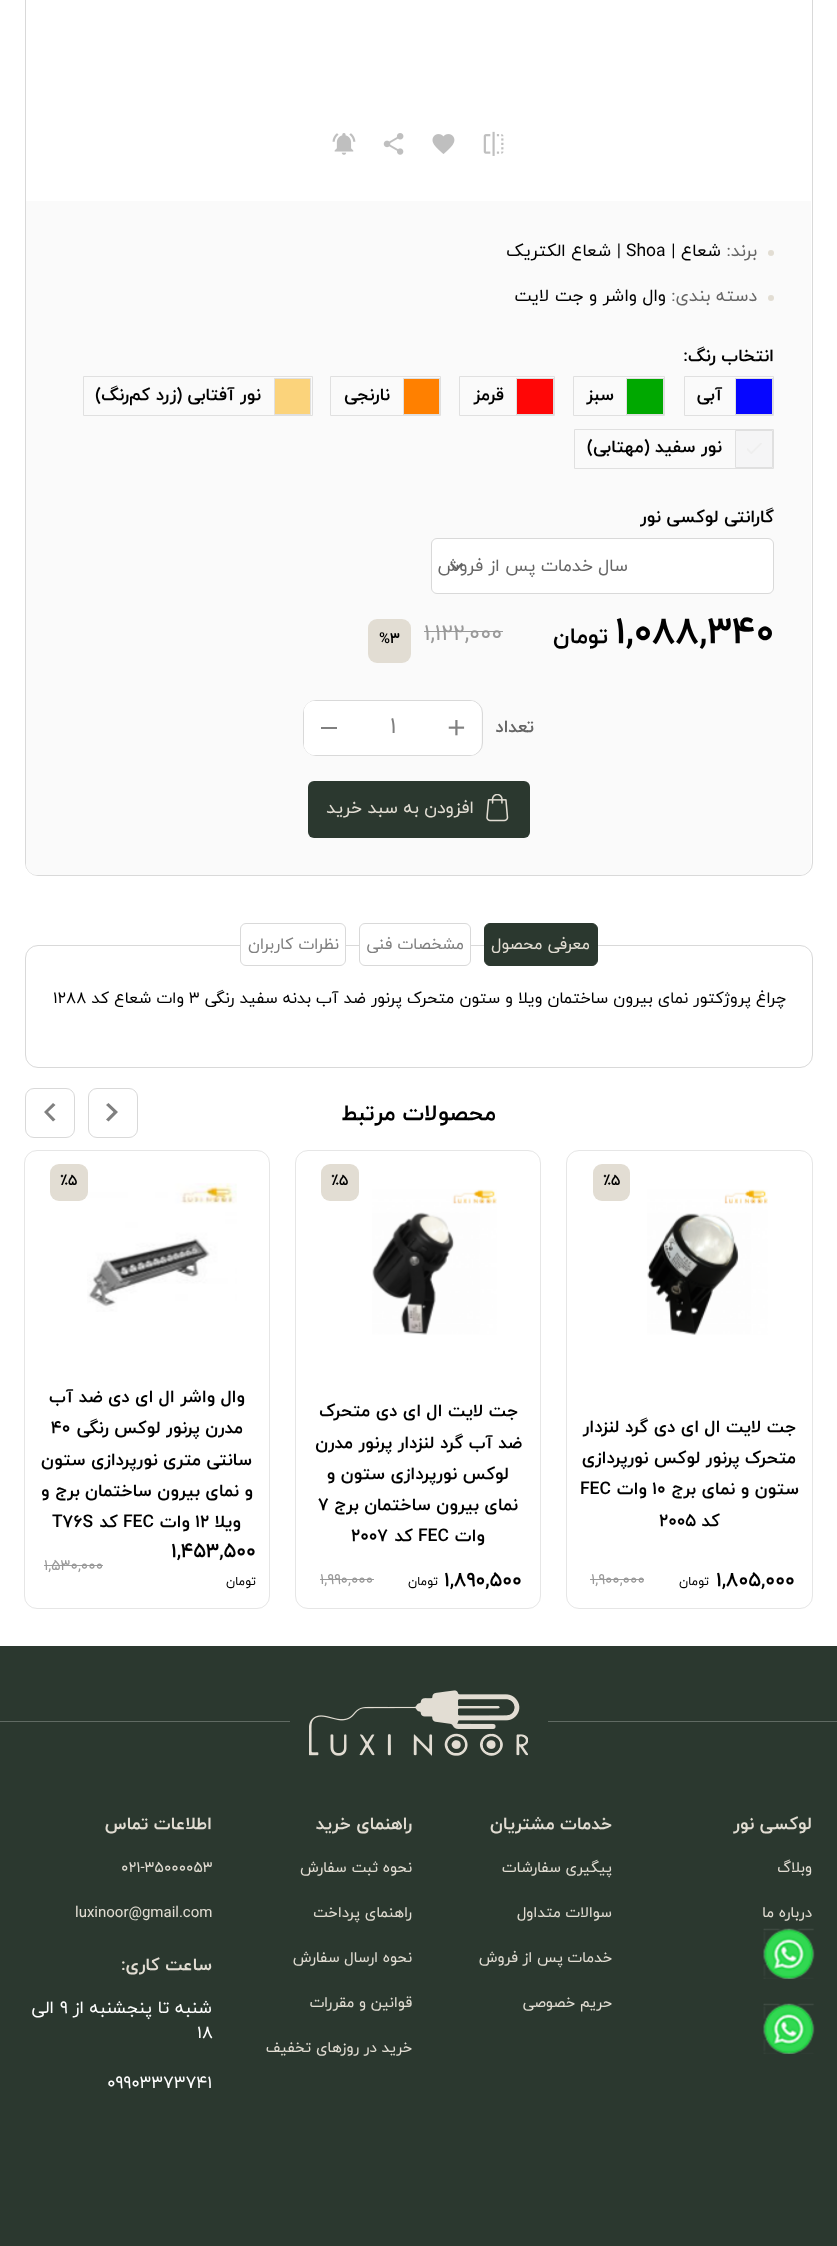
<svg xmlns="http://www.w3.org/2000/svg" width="837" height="2246">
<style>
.a{font:17.5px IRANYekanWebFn;direction:rtl;fill:#666}
.b{font:17.5px IRANYekanWebFn;direction:rtl;fill:#000}
.c{font:17.5px IRANYekanWebFn;fill:#000}
.d{font:bold 17.5px IRANYekanWebFn;direction:rtl;fill:#000}
.e{font:bold 37.5px IRANYekanWebFn;fill:#000}
.f{font:bold 22.5px IRANYekanWebFn;direction:rtl;fill:#000}
.g{font:22.5px IRANYekanWebFn;fill:#999}
.h{font:bold 15px IRANYekanWebFn;fill:#000}
.i{font:bold 17.5px IRANYekanWebFn;direction:rtl;fill:#666}
.j{font:22.5px IRANYekanWebFn;fill:#808080}
.k{font:17.5px IRANYekanWebFn;direction:rtl;fill:#e2ddd3}
.l{font:16.25px IRANYekanWebFn;direction:rtl;fill:#e2ddd3}
.m{font:16.25px IRANYekanWebFn;direction:rtl;fill:#808080}
.n{font:16.25px IRANYekanWebFn;direction:rtl;fill:#000}
.o{font:16.25px IRANYekanWebFn;fill:#000}
.p{font:bold 20px IRANYekanWebFn;fill:#000}
.q{font:12.5px IRANYekanWebFn;direction:rtl;fill:#000}
.r{font:15px IRANYekanWebFn;fill:#999}
.s{font:bold 17.5px IRANYekanWebFn;fill:#000}
.t{font:bold 17.5px IRANYekanWebFn;direction:rtl;fill:#e2ddd3}
.u{font:15px IRANYekanWebFn;direction:rtl;fill:#e2ddd3}
.v{font:15px IRANYekanWebFn;fill:#e2ddd3}
.w{font:17.5px IRANYekanWebFn;direction:rtl;fill:#fff}
.x{font:17.5px IRANYekanWebFn;fill:#fff}
</style>
<rect width="100%" height="100%" fill="#fff"/>
<rect fill="none" stroke="#d9d9d9" x="25.5" y="-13.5" width="787" height="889" rx="12.5"/>
<image href="1.png" x="483" y="131" width="21" height="25"/>
<image href="2.png" x="432" y="134" width="23" height="20"/>
<image href="3.png" x="383" y="133" width="21" height="22"/>
<image href="4.png" x="332" y="133" width="24" height="22"/>
<path fill="#fafafa" d="M26 201h785v663c0 6-5 11-11 11h-763c-6 0-11-5-11-11z"/>
<circle fill="#e2ddd3" cx="771" cy="253" r="3"/>
<circle fill="#e2ddd3" cx="771" cy="298" r="3"/>
<path fill="none" stroke="#e0e0e0" d="M684.5 376.5h89v39H684.5z"/>
<path fill="#0606ff" stroke="#e0e0e0" d="M735.5 378.5h37v36H735.5z"/>
<path fill="none" stroke="#e0e0e0" d="M573.5 376.5h91v39H573.5z"/>
<path fill="#00a800" stroke="#e0e0e0" d="M626.5 378.5h37v36H626.5z"/>
<path fill="none" stroke="#e0e0e0" d="M459.5 376.5h95v39H459.5z"/>
<path fill="#ff0606" stroke="#e0e0e0" d="M516.5 378.5h37v36H516.5z"/>
<path fill="none" stroke="#e0e0e0" d="M330.5 376.5h110v39H330.5z"/>
<path fill="#ff8000" stroke="#e0e0e0" d="M403.5 378.5h36v36H403.5z"/>
<path fill="none" stroke="#e0e0e0" d="M83.5 376.5h229v39H83.5z"/>
<path fill="#fbd37b" stroke="#e0e0e0" d="M274.5 378.5h36v36H274.5z"/>
<path fill="none" stroke="#e0e0e0" d="M574.5 429.5h199v39H574.5z"/>
<path fill="#f5f5f6" stroke="#e0e0e0" d="M735.5 430.5h37v37H735.5z"/>
<image href="5.png" x="747" y="443" width="15" height="11"/>
<rect fill="#fff" stroke="#d9d9d9" x="431.5" y="538.5" width="342" height="55" rx="5.5"/>
<rect fill="#e2ddd3" x="368" y="619" width="43" height="44" rx="9"/>
<rect fill="none" stroke="#d9d9d9" x="303.5" y="700.5" width="179" height="55" rx="12.5"/>
<rect fill="#fff" x="304" y="701" width="177" height="54" rx="11"/>
<path fill="#fff" d="M431 701h39c6 0 11 5 11 11v32c0 6-5 11-11 11h-39z"/>
<image href="7.png" x="448" y="720" width="17" height="16"/>
<path fill="#fff" d="M315 701h39v54h-39c-6 0-11-5-11-11v-32c0-6 5-11 11-11z"/>
<path fill="#808080" d="M321 727h16v2H321z"/>
<rect fill="#2b382f" x="308" y="781" width="222" height="57" rx="6"/>
<image href="8.png" x="486" y="794" width="23" height="28"/>
<rect fill="none" stroke="#d9d9d9" x="25.5" y="945.5" width="787" height="122" rx="12.5"/>
<rect fill="#2b382f" stroke="#2b382f" x="484.5" y="923.5" width="113" height="42" rx="5.5"/>
<rect fill="#fff" stroke="#d9d9d9" x="359.5" y="923.5" width="111" height="42" rx="5.5"/>
<rect fill="#fff" stroke="#d9d9d9" x="240.5" y="923.5" width="105" height="42" rx="5.5"/>
<rect fill="none" stroke="#d9d9d9" x="88.5" y="1088.5" width="49" height="49" rx="8.5"/>
<path fill="#808080" d="M108.5 1103l9.5 9l-9.5 9.5l-2.5-2l7.5-7.5l-7.5-7z"/>
<rect fill="none" stroke="#d9d9d9" x="25.5" y="1088.5" width="49" height="49" rx="8.5"/>
<path fill="#808080" d="M55.5 1105l-7.5 7l7.5 7.5l-2.5 2l-9-9.5l9-9z"/>
<rect fill="none" stroke="#e6e6e6" x="566.5" y="1150.5" width="246" height="458" rx="12.5"/>
<rect fill="#e2ddd3" x="593" y="1164" width="37" height="37" rx="9"/>
<path fill="#999" d="M590 1579h54v1H590z"/>
<image href="9.png" x="647" y="1189" width="121" height="146"/>
<rect fill="none" stroke="#e6e6e6" x="295.5" y="1150.5" width="245" height="458" rx="12.5"/>
<rect fill="#e2ddd3" x="321" y="1164" width="38" height="37" rx="9"/>
<path fill="#999" d="M320 1579h54v1H320z"/>
<image href="10.png" x="372" y="1189" width="125" height="146"/>
<rect fill="none" stroke="#e6e6e6" x="24.5" y="1150.5" width="245" height="458" rx="12.5"/>
<image href="11.png" x="87" y="1183" width="150" height="129"/>
<rect fill="#e2ddd3" x="50" y="1164" width="38" height="37" rx="9"/>
<path fill="#999" d="M44 1565h59v1H44z"/>
<path fill="#2b382f" d="M0 1646h837v600H0z"/>
<path fill="#606a63" d="M0 1721h837v1H0z"/>
<path fill="#2b382f" d="M290 1721h258v1H290z"/>
<image href="12.png" x="309" y="1690" width="219" height="66"/>
<image href="13.png" x="763" y="1928" width="52" height="51"/>
<image href="14.png" x="763" y="2003" width="52" height="51"/>
<text class="a" x="757" y="256">برند:</text>
<text class="b" x="721" y="256">شعاع |</text>
<text class="c" x="626" y="256">Shoa</text>
<text class="b" x="621" y="256">| شعاع الکتریک</text>
<text class="a" x="757" y="301">دسته بندی:</text>
<text class="b" x="666" y="301">وال واشر و جت لایت</text>
<text class="d" x="774" y="361">انتخاب رنگ:</text>
<text class="d" x="722" y="400">آبی</text>
<text class="d" x="614" y="400">سبز</text>
<text class="d" x="504" y="400">قرمز</text>
<text class="d" x="390" y="400">نارنجی</text>
<text class="d" x="261" y="400">نور آفتابی (زرد کم‌رنگ)</text>
<text class="d" x="722" y="452">نور سفید (مهتابی)</text>
<text class="d" x="774" y="522">گارانتی لوکسی نور</text>
<text class="a" x="628" y="571">سال خدمات پس از فروش</text>
<image href="6.png" x="450" y="562" width="13" height="9"/>
<text class="e" x="615" y="643">1,088,340</text>
<text class="f" x="608" y="643">تومان</text>
<text class="g" x="424" y="640">1,122,000</text>
<path fill="#989898" d="M424 631h79v1H424z"/>
<text class="h" x="379" y="643">%3</text>
<text class="i" x="534" y="732">تعداد</text>
<text class="j" x="390" y="733">1</text>
<text class="k" x="474" y="813">افزودن به سبد خرید</text>
<text class="l" x="590" y="949">معرفی محصول</text>
<text class="m" x="464" y="949">مشخصات فنی</text>
<text class="m" x="339" y="949">نظرات کاربران</text>
<text class="n" x="786" y="1003">چراغ پروژکتور نمای بیرون ساختمان ویلا و ستون متحرک پرنور ضد آب بدنه سفید رنگی</text>
<text class="o" x="189" y="1003">3</text>
<text class="n" x="184" y="1003">وات شعاع کد</text>
<text class="o" x="53" y="1003">1288</text>
<text class="f" x="496" y="1120">محصولات مرتبط</text>
<text class="h" x="603" y="1185">٪5</text>
<text class="p" x="716" y="1586">۱,۸۰۵,۰۰۰</text>
<text class="q" x="709" y="1585">تومان</text>
<text class="r" x="591" y="1584">۱,۹۰۰,۰۰۰</text>
<text class="d" x="796" y="1432">جت لایت ال ای دی گرد لنزدار</text>
<text class="d" x="796" y="1463">متحرک پرنور لوکس نورپردازی</text>
<text class="d" x="799" y="1494">ستون و نمای برج</text>
<text class="s" x="652" y="1494">10</text>
<text class="d" x="647" y="1494">وات</text>
<text class="s" x="580" y="1494">FEC</text>
<text class="d" x="720" y="1526">کد</text>
<text class="s" x="659" y="1526">2005</text>
<text class="h" x="331" y="1185">٪5</text>
<text class="p" x="444" y="1586">۱,۸۹۰,۵۰۰</text>
<text class="q" x="438" y="1585">تومان</text>
<text class="r" x="320" y="1584">۱,۹۹۰,۰۰۰</text>
<text class="d" x="518" y="1416">جت لایت ال ای دی متحرک</text>
<text class="d" x="522" y="1448">ضد آب گرد لنزدار پرنور مدرن</text>
<text class="d" x="509" y="1479">لوکس نورپردازی ستون و</text>
<text class="d" x="518" y="1510">نمای بیرون ساختمان برج</text>
<text class="s" x="318" y="1510">7</text>
<text class="d" x="485" y="1541">وات</text>
<text class="s" x="418" y="1541">FEC</text>
<text class="d" x="413" y="1541">کد</text>
<text class="s" x="351" y="1541">2007</text>
<text class="h" x="60" y="1185">٪5</text>
<text class="p" x="171" y="1557">۱,۴۵۳,۵۰۰</text>
<text class="q" x="256" y="1585">تومان</text>
<text class="r" x="44" y="1570">۱,۵۳۰,۰۰۰</text>
<text class="d" x="245" y="1402">وال واشر ال ای دی ضد آب</text>
<text class="d" x="243" y="1433">مدرن پرنور لوکس رنگی</text>
<text class="s" x="51" y="1433">40</text>
<text class="d" x="252" y="1465">سانتی متری نورپردازی ستون</text>
<text class="d" x="253" y="1496">و نمای بیرون ساختمان برج و</text>
<text class="d" x="241" y="1527">ویلا</text>
<text class="s" x="195" y="1527">12</text>
<text class="d" x="190" y="1527">وات</text>
<text class="s" x="123" y="1527">FEC</text>
<text class="d" x="118" y="1527">کد</text>
<text class="s" x="52" y="1527">T76S</text>
<text class="t" x="812" y="1829">لوکسی نور</text>
<text class="u" x="812" y="1872">وبلاگ</text>
<text class="u" x="812" y="1917">درباره ما</text>
<text class="t" x="612" y="1829">خدمات مشتریان</text>
<text class="u" x="612" y="1872">پیگیری سفارشات</text>
<text class="u" x="612" y="1917">سوالات متداول</text>
<text class="u" x="612" y="1962">خدمات پس از فروش</text>
<text class="u" x="612" y="2007">حریم خصوصی</text>
<text class="t" x="412" y="1829">راهنمای خرید</text>
<text class="u" x="412" y="1872">نحوه ثبت سفارش</text>
<text class="u" x="412" y="1917">راهنمای پرداخت</text>
<text class="u" x="412" y="1962">نحوه ارسال سفارش</text>
<text class="u" x="412" y="2007">قوانین و مقررات</text>
<text class="u" x="412" y="2052">خرید در روزهای تخفیف</text>
<text class="t" x="212" y="1829">اطلاعات تماس</text>
<text class="v" x="121" y="1872">021-35000053</text>
<text class="v" x="75" y="1917">luxinoor@gmail.com</text>
<text class="t" x="212" y="1970">ساعت کاری:</text>
<text class="w" x="212" y="2013">شنبه تا پنجشنبه از</text>
<text class="x" x="60" y="2013">9</text>
<text class="w" x="54" y="2013">الی</text>
<text class="x" x="197" y="2038">18</text>
<text class="x" x="107" y="2088">09903373741</text>
</svg>
